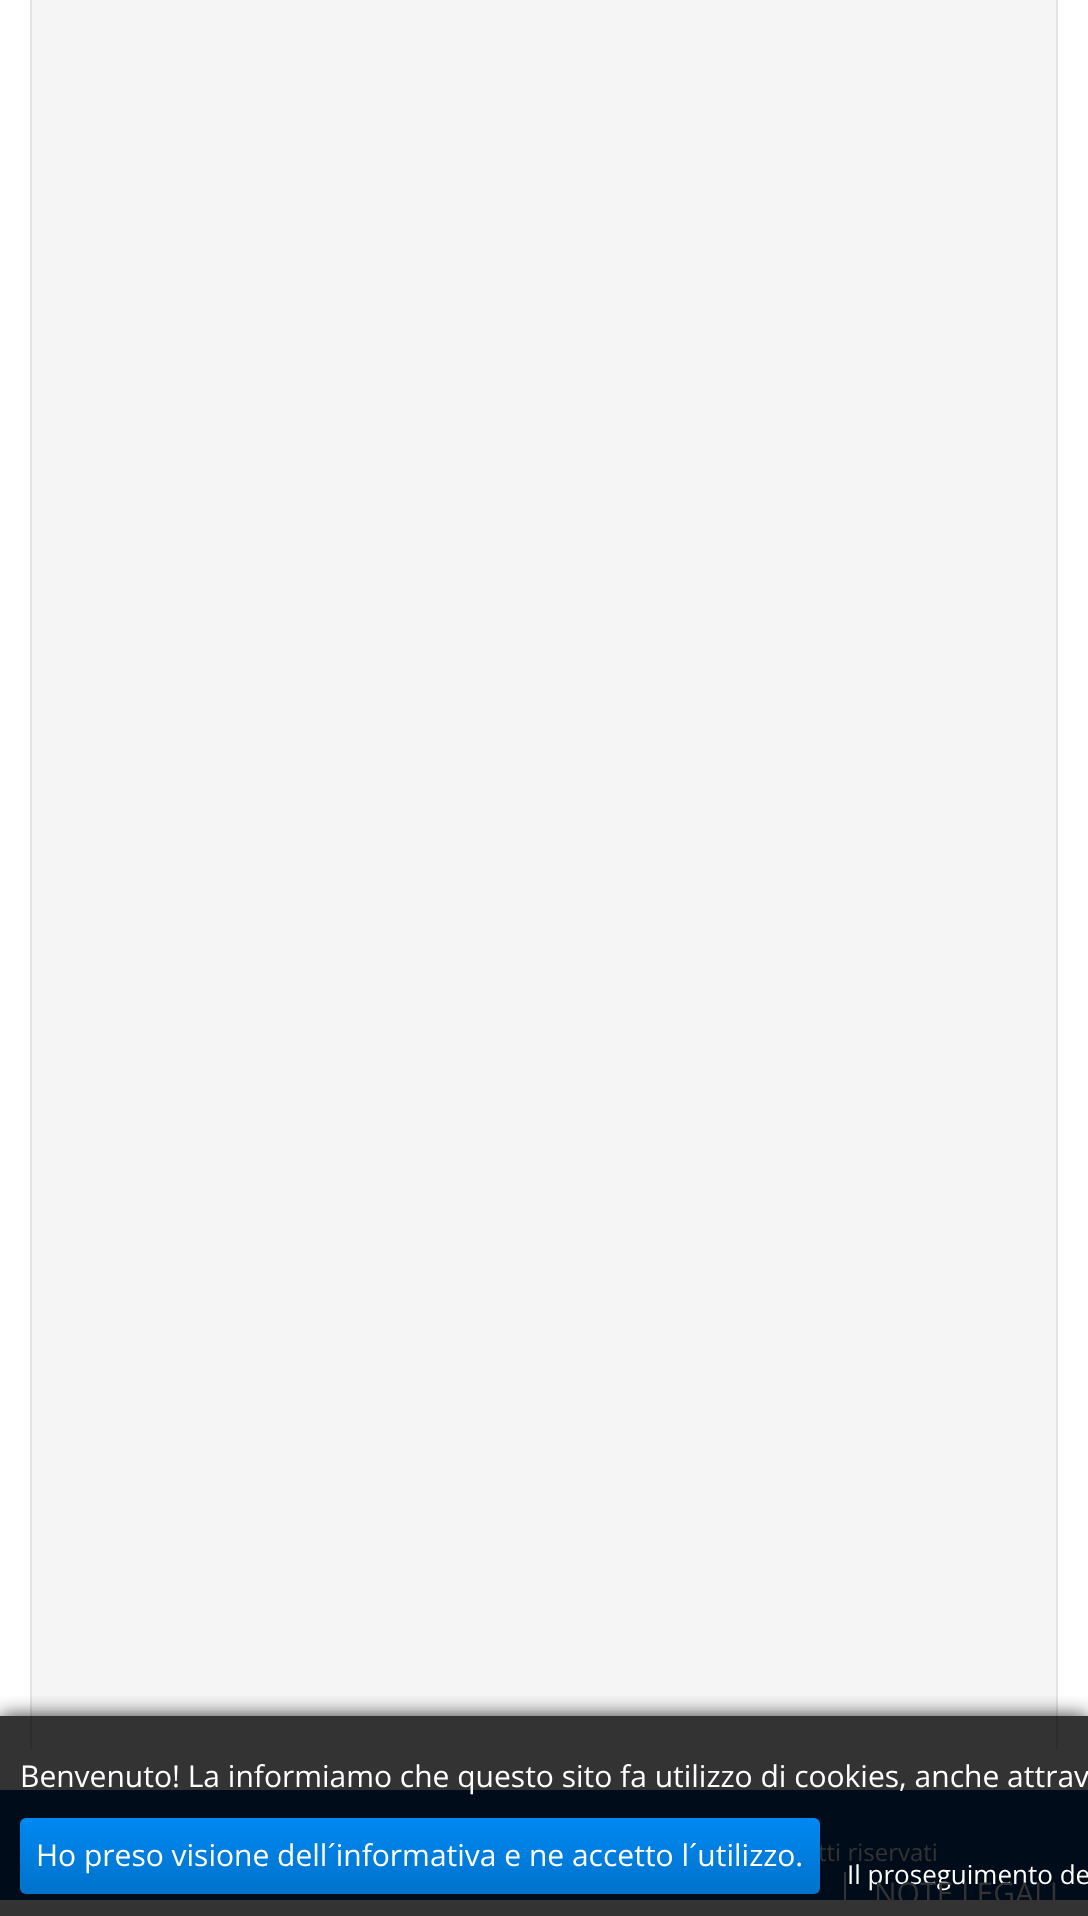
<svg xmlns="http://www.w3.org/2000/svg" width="1088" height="1916">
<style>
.a{font:30px Open Sans;fill:#fff}
.b{font:26px Open Sans;fill:#fff}
.c{font:24px Open Sans;fill:#333}
.d{font:30px Open Sans;fill:#333}
</style>
<defs>
<clipPath id="clip1"><path d="M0 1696h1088v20H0z"/></clipPath>
<linearGradient id="g1" gradientUnits="userSpaceOnUse" x1="420" y1="1818" x2="420" y2="1894"><stop offset="0" stop-color="#0089f2"/><stop offset="1" stop-color="#0072ca"/></linearGradient>
</defs>
<rect width="100%" height="100%" fill="#fff"/>
<path fill="#333" d="M0 1716h1088v200H0z"/>
<path fill="#f5f5f5" d="M32 0h1024v1716H32z"/>
<path fill="#e3e3e3" d="M1056 0h2v1716H1056z"/>
<path fill="#2d2d2d" d="M1056 1716h2v34H1056z"/>
<path fill="#e3e3e3" d="M30 0h2v1716H30z"/>
<path fill="#2d2d2d" d="M30 1716h2v34H30z"/>
<path fill="#010c1a" d="M0 1790h1088v110H0z"/>
<path fill="#333" d="M844 1872h2v28H844z"/>
<g clip-path="url(#clip1)">
<path fill="#000000cc" filter="blur(10px)" d="M0 1716h1088v200H0z"/>
</g>
<text class="a" x="20" y="1787">Benvenuto! La informiamo che questo sito fa utilizzo di cookies, anche attrav</text>
<text class="b" x="847" y="1884">Il proseguimento de</text>
<text class="c" x="818" y="1861">tti riservati</text>
<rect fill="url(#g1)" x="20" y="1818" width="800" height="76" rx="6"/>
<text class="a" x="36" y="1866">Ho preso visione dell´informativa e ne accetto l´utilizzo.</text>
<text class="d" x="874" y="1904">NOTE LEGALI</text>
</svg>
